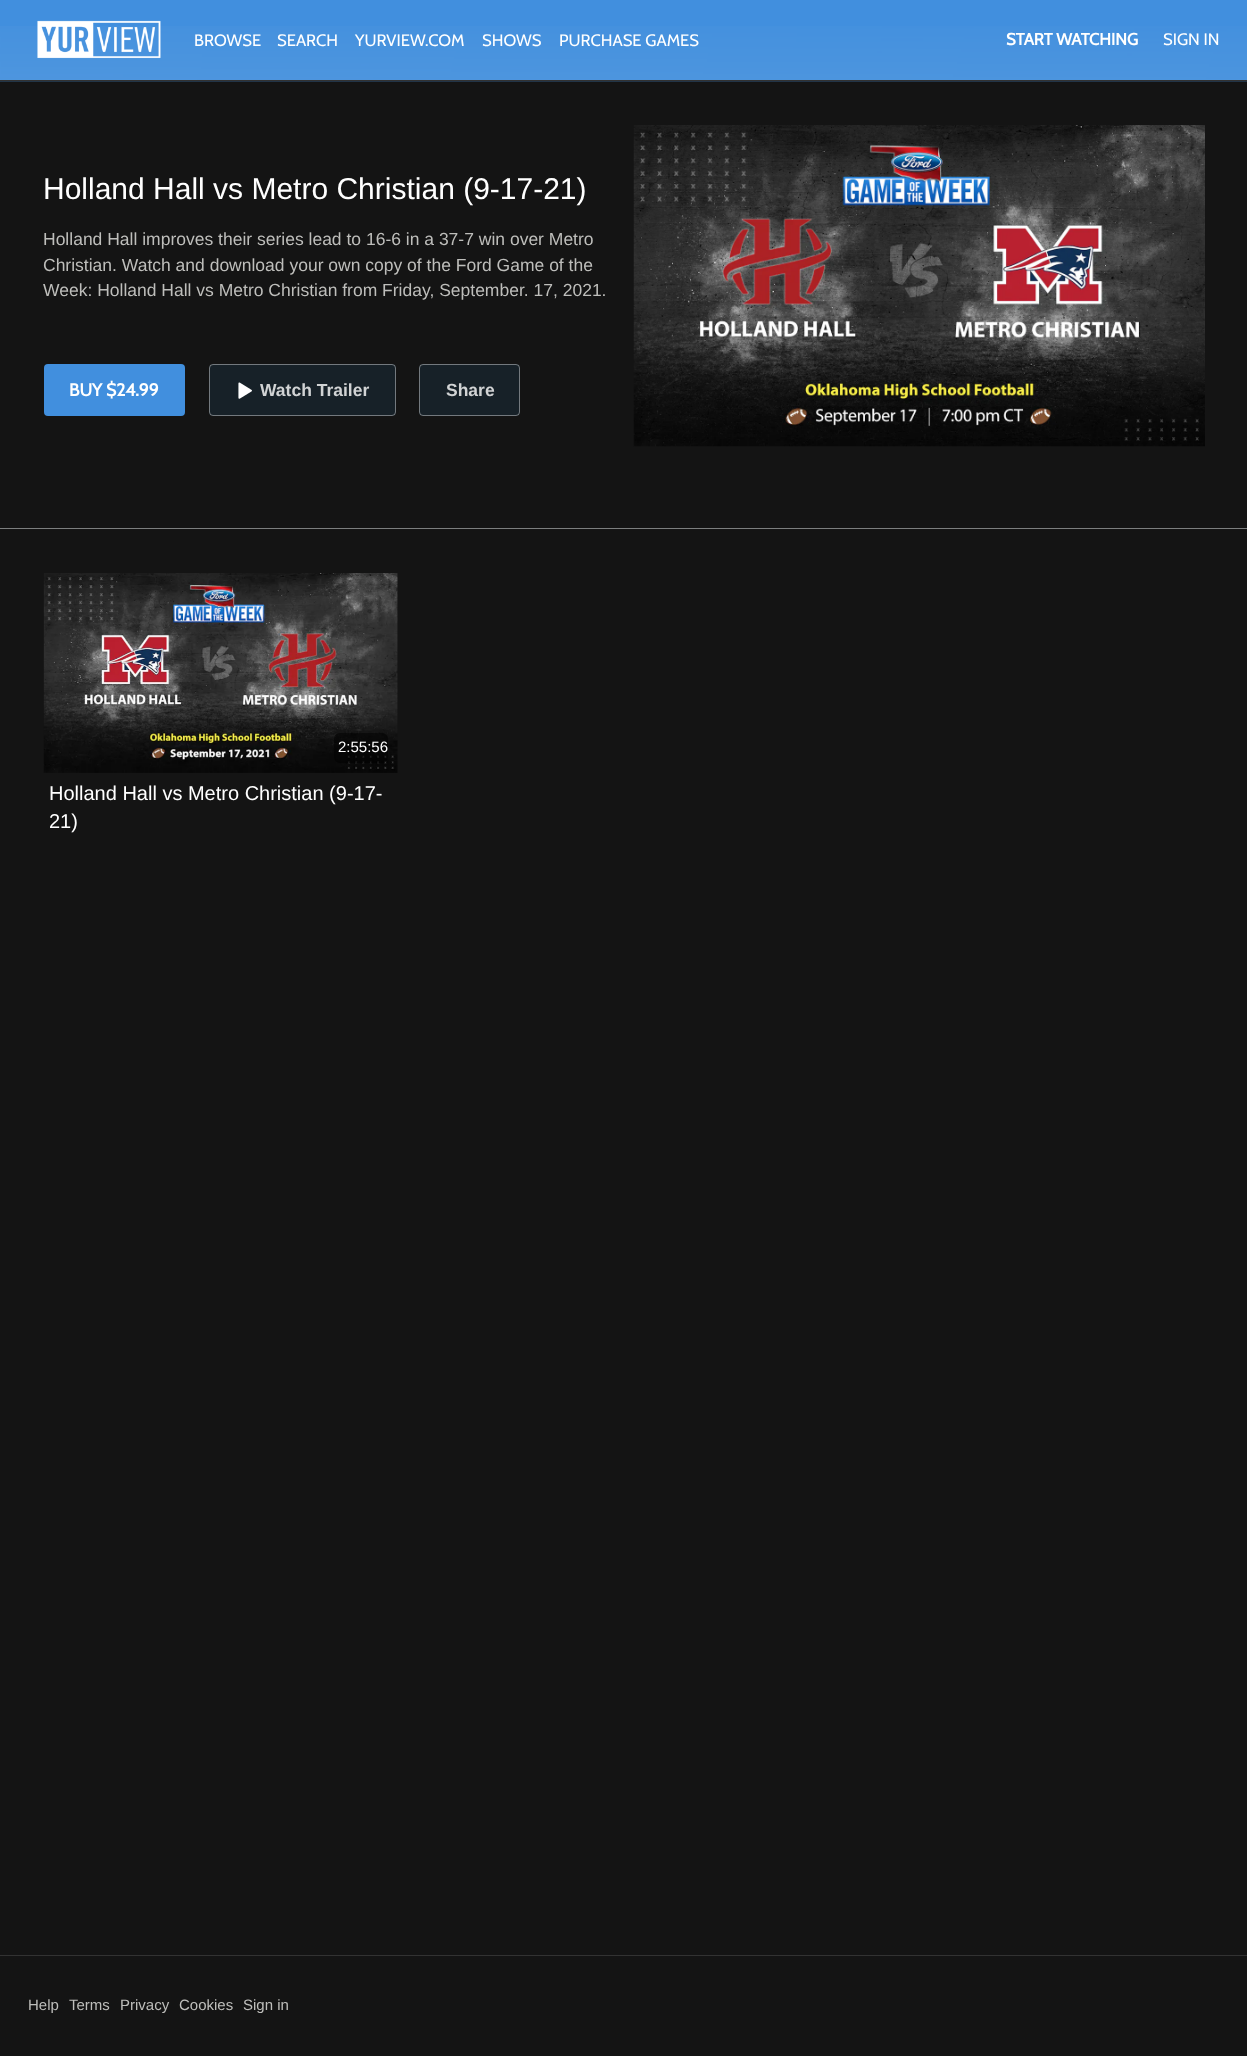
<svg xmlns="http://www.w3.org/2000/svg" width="1247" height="2056">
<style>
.a{font:16.6px Cabin;fill:#fff}
.b{font:bold 16.6px Cabin;fill:#fff}
.c{font:30px Liberation Sans;fill:#fff}
.d{font:17.5px Liberation Sans;fill:#bebebb}
.e{font:bold 17.5px Cabin;fill:#fff}
.f{font:bold 17.5px Liberation Sans;fill:#d1d3d4}
.g{font:15px Liberation Sans;fill:#fff}
.h{font:20px Liberation Sans;fill:#fff}
.i{font:15px Liberation Sans;fill:#bebebb}
</style>
<rect width="100%" height="100%" fill="#141414"/>
<path fill="#418fde" d="M0 0h1247v26H0z"/>
<image href="1.png" x="0" y="26" width="1247" height="56"/>
<path fill="#323232" d="M0 80h1247v1H0z"/>
<image href="2.png" x="37" y="20" width="124" height="39"/>
<path fill="#7c7e7f" d="M0 528h1247v1H0z"/>
<rect fill="#418fde" x="44" y="364" width="141" height="52" rx="4"/>
<rect fill="#172128" x="209" y="364" width="187" height="52" rx="4"/>
<rect fill="none" stroke="#ffffff66" x="209.5" y="364.5" width="186" height="51" rx="3.5"/>
<image href="3.png" x="238" y="382" width="14" height="17"/>
<rect fill="#172128" x="419" y="364" width="101" height="52" rx="4"/>
<rect fill="none" stroke="#ffffff66" x="419.5" y="364.5" width="100" height="51" rx="3.5"/>
<image href="4.png" x="633" y="125" width="572" height="322"/>
<image href="5.png" x="43" y="573" width="355" height="200"/>
<rect fill="#00000080" x="334" y="733" width="54" height="30" rx="6"/>
<path fill="#323232" d="M0 1955h1247v1H0z"/>
<text class="a" x="194" y="46">BROWSE</text>
<text class="a" x="277" y="46">SEARCH</text>
<text class="a" x="355" y="46">YURVIEW.COM</text>
<text class="a" x="482" y="46">SHOWS</text>
<text class="a" x="559" y="46">PURCHASE GAMES</text>
<text class="b" x="1006" y="45">START WATCHING</text>
<text class="a" x="1163" y="45">SIGN IN</text>
<text class="c" x="43" y="199">Holland Hall vs Metro Christian (9-17-21)</text>
<text class="d" x="43" y="245">Holland Hall improves their series lead to 16-6 in a 37-7 win over Metro</text>
<text class="d" x="43" y="271">Christian. Watch and download your own copy of the Ford Game of the</text>
<text class="d" x="43" y="296">Week: Holland Hall vs Metro Christian from Friday, September. 17, 2021.</text>
<text class="e" x="69" y="396">BUY $24.99</text>
<text class="f" x="260" y="396">Watch Trailer</text>
<text class="f" x="446" y="396">Share</text>
<text class="g" x="338" y="752">2:55:56</text>
<text class="h" x="49" y="800">Holland Hall vs Metro Christian (9-17-</text>
<text class="h" x="49" y="828">21)</text>
<text class="i" x="28" y="2010">Help</text>
<text class="i" x="69" y="2010">Terms</text>
<text class="i" x="120" y="2010">Privacy</text>
<text class="i" x="179" y="2010">Cookies</text>
<text class="i" x="243" y="2010">Sign in</text>
</svg>
